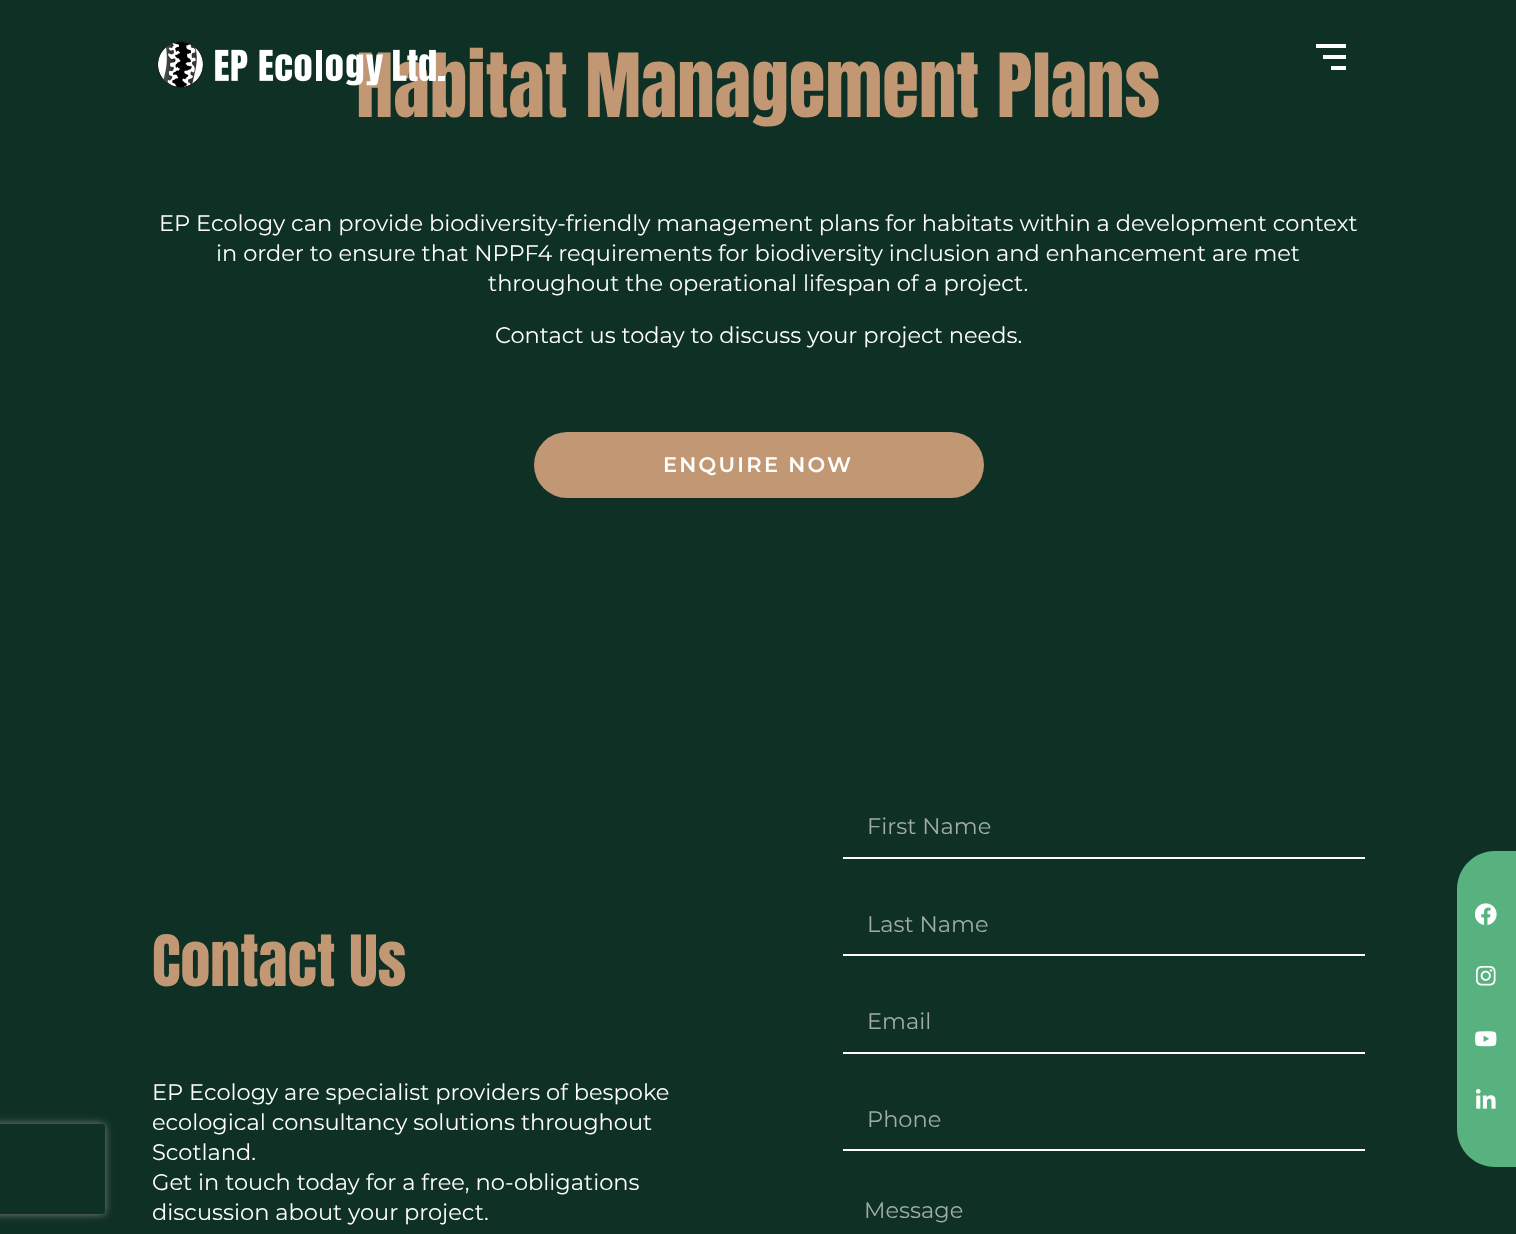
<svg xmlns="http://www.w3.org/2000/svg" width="1516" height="1234">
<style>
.a{font:75px Anton;fill:#c29774}
.b{font:22.5px Montserrat;fill:#fff}
.c{font:600 21px Montserrat;letter-spacing:2.25px;fill:#fff}
.d{font:60px Anton;fill:#c29774}
.e{font:22.5px Montserrat;fill:#9faca8}
</style>
<defs>
<clipPath id="clip1"><path d="M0 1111h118v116h-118zm-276 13h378c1.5 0 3 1.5 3 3v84c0 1.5-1.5 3-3 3h-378c-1.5 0-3-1.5-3-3v-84c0-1.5 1.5-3 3-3z" clip-rule="evenodd"/></clipPath>
</defs>
<rect width="100%" height="100%" fill="#0f3025"/>
<path fill="#fff" d="M1316 44h30v4H1316z"/>
<path fill="#fff" d="M1323 55h23v4H1323z"/>
<path fill="#fff" d="M1331 66h15v4H1331z"/>
<path fill="#58b280" d="M1495 851h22v316h-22c-21 0-38-17-38-38v-240c0-21 17-38 38-38z"/>
<image href="2.png" x="1475" y="903" width="22" height="22"/>
<image href="3.png" x="1475" y="966" width="21" height="20"/>
<image href="4.png" x="1475" y="1031" width="22" height="16"/>
<image href="5.png" x="1475" y="1089" width="21" height="20"/>
<rect fill="#c29774" x="534" y="432" width="450" height="66" rx="33"/>
<path fill="#fff" d="M843 857h522v2H843z"/>
<path fill="#fff" d="M843 954h522v2H843z"/>
<path fill="#fff" d="M843 1052h522v2H843z"/>
<g clip-path="url(#clip1)">
<rect fill="#808080" filter="blur(4px)" x="-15" y="1124" width="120" height="90" rx="3"/>
</g>
<path fill="#fff" d="M843 1149h522v2H843z"/>
<text class="a" x="356" y="117">Habitat Management Plans</text>
<image href="1.png" x="157" y="41" width="288" height="47"/>
<text class="b" x="159" y="231">EP Ecology can provide biodiversity-friendly management plans for habitats within a development context</text>
<text class="b" x="216" y="261">in order to ensure that NPPF4 requirements for biodiversity inclusion and enhancement are met</text>
<text class="b" x="488" y="291">throughout the operational lifespan of a project.</text>
<text class="b" x="495" y="343">Contact us today to discuss your project needs.</text>
<text class="c" x="663" y="472">ENQUIRE NOW</text>
<text class="d" x="152" y="986">Contact Us</text>
<text class="b" x="152" y="1100">EP Ecology are specialist providers of bespoke</text>
<text class="b" x="152" y="1130">ecological consultancy solutions throughout</text>
<text class="b" x="152" y="1160">Scotland.</text>
<text class="b" x="152" y="1190">Get in touch today for a free, no-obligations</text>
<text class="b" x="152" y="1220">discussion about your project.</text>
<text class="e" x="867" y="834">First Name</text>
<text class="e" x="867" y="932">Last Name</text>
<text class="e" x="867" y="1029">Email</text>
<text class="e" x="867" y="1127">Phone</text>
<text class="e" x="864" y="1218">Message</text>
</svg>
